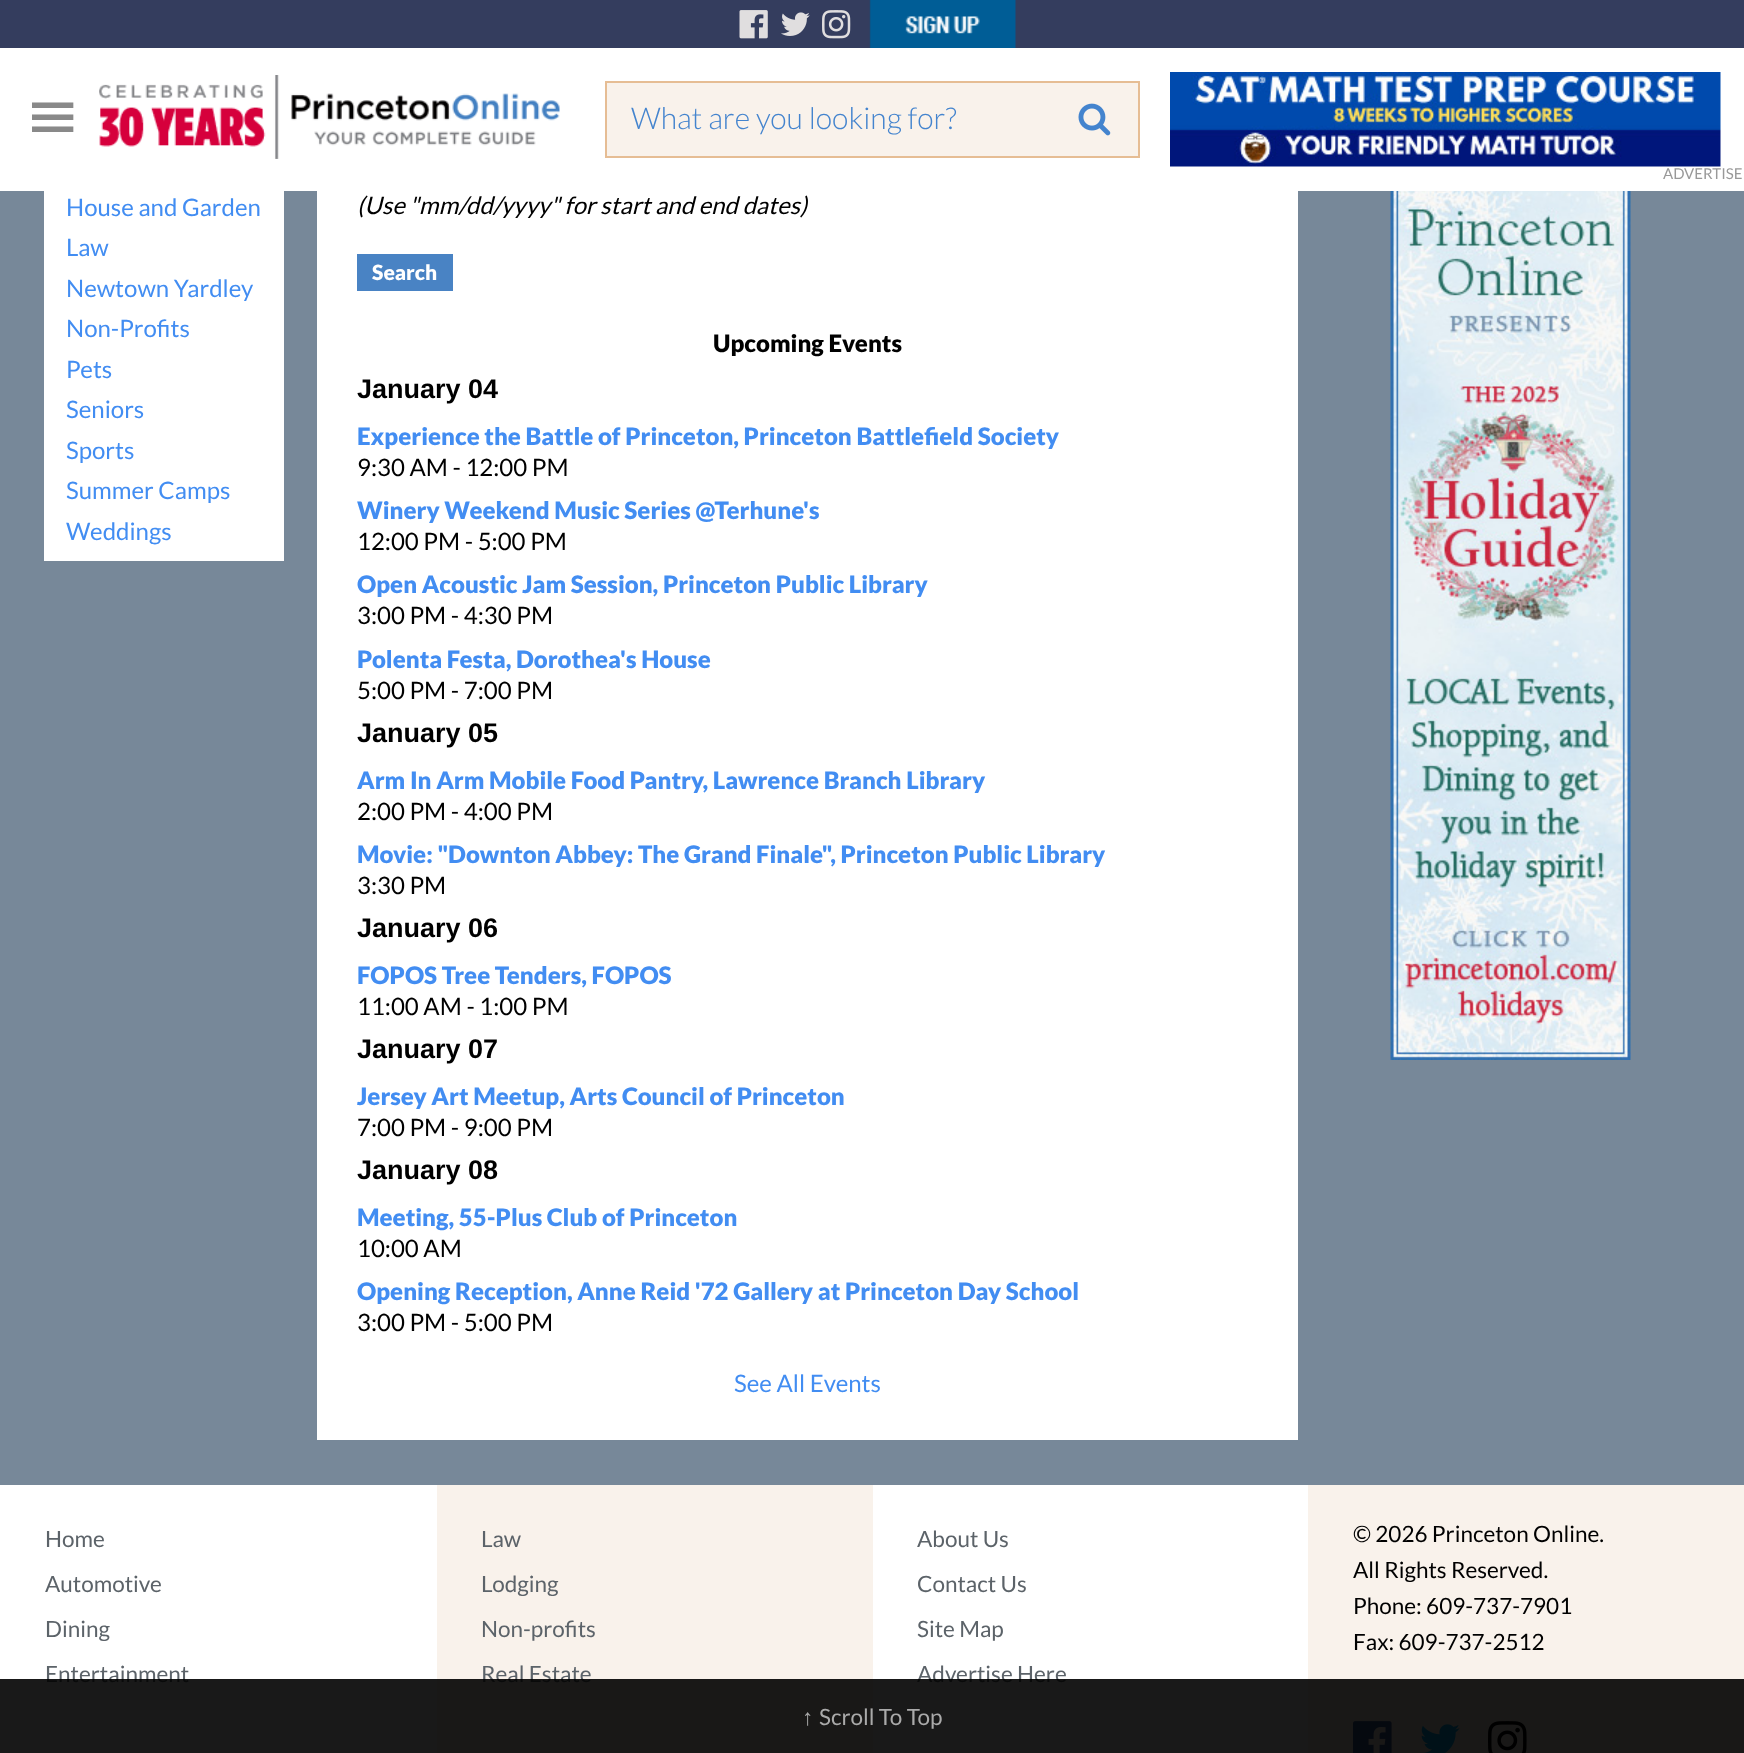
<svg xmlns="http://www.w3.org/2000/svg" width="1744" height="1753">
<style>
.a{font:66px DejaVu Sans;fill:#898989}
.b{font:300 30.1px Lato;fill:#4484ce}
.c{font:15px Lato;fill:#999}
.d{font:24px Lato;fill:#428df2}
.e{font:italic 24px Lato;fill:#000}
.f{font:900 21px Lato;fill:#fff}
.g{font:900 24px Lato;fill:#000}
.h{font:bold 27px Liberation Sans;fill:#000}
.i{font:900 24px Lato;fill:#428df2}
.j{font:24px Lato;fill:#000}
.k{font:22.5px Lato;fill:#5c6369}
.l{font:22.5px Lato;fill:#000}
.m{font:italic 22.5px Liberation Sans;fill:#aaa}
.n{font:22.5px Lato;fill:#aaa}
</style>
<rect width="100%" height="100%" fill="#fff"/>
<path fill="#343d5e" d="M0 0h1744v48H0z"/>
<image href="1.png" x="739" y="10" width="29" height="29"/>
<image href="2.png" x="781" y="12" width="29" height="24"/>
<image href="3.png" x="822" y="10" width="29" height="29"/>
<image href="4.png" x="869" y="0" width="147" height="48"/>
<image href="5.png" x="99" y="75" width="461" height="84"/>
<path fill="#f9f2eb" stroke="#e6bd94" stroke-width="2" d="M606 82h533v75H606z"/>
<image href="6.png" x="1078" y="103" width="33" height="33"/>
<image href="7.png" x="1170" y="72" width="551" height="95"/>
<path fill="#789" d="M0 191h1744v1294H0z"/>
<path fill="#fff" d="M44 191h240v370H44z"/>
<path fill="#fff" d="M317 191h981v1249H317z"/>
<path fill="#4983c4" d="M357 254h96v37H357z"/>
<image href="8.png" x="1390" y="191" width="241" height="869"/>
<path fill="#f9f2eb" d="M437 1485h436v268H437z"/>
<path fill="#f9f2eb" d="M1308 1485h436v268H1308z"/>
<image href="9.png" x="1353" y="1721" width="39" height="32"/>
<image href="10.png" x="1420" y="1724" width="40" height="29"/>
<image href="11.png" x="1488" y="1721" width="39" height="32"/>
<text class="a" x="25" y="138">≡</text>
<text class="b" x="631" y="129">What are you looking for?</text>
<text class="c" x="1663" y="179">ADVERTISE</text>
<text class="d" x="66" y="216">House and Garden</text>
<text class="d" x="66" y="256">Law</text>
<text class="d" x="66" y="297">Newtown Yardley</text>
<text class="d" x="66" y="337">Non-Profits</text>
<text class="d" x="66" y="378">Pets</text>
<text class="d" x="66" y="418">Seniors</text>
<text class="d" x="66" y="459">Sports</text>
<text class="d" x="66" y="499">Summer Camps</text>
<text class="d" x="66" y="540">Weddings</text>
<text class="e" x="357" y="214">(Use "mm/dd/yyyy" for start and end dates)</text>
<text class="f" x="372" y="280">Search</text>
<text class="g" x="713" y="352">Upcoming Events</text>
<text class="h" x="357" y="398">January 04</text>
<text class="i" x="357" y="445">Experience the Battle of Princeton, Princeton Battlefield Society</text>
<text class="j" x="357" y="476">9:30 AM - 12:00 PM</text>
<text class="i" x="357" y="519">Winery Weekend Music Series @Terhune's</text>
<text class="j" x="357" y="550">12:00 PM - 5:00 PM</text>
<text class="i" x="357" y="593">Open Acoustic Jam Session, Princeton Public Library</text>
<text class="j" x="357" y="624">3:00 PM - 4:30 PM</text>
<text class="i" x="357" y="668">Polenta Festa, Dorothea's House</text>
<text class="j" x="357" y="699">5:00 PM - 7:00 PM</text>
<text class="h" x="357" y="742">January 05</text>
<text class="i" x="357" y="789">Arm In Arm Mobile Food Pantry, Lawrence Branch Library</text>
<text class="j" x="357" y="820">2:00 PM - 4:00 PM</text>
<text class="i" x="357" y="863">Movie: "Downton Abbey: The Grand Finale", Princeton Public Library</text>
<text class="j" x="357" y="894">3:30 PM</text>
<text class="h" x="357" y="937">January 06</text>
<text class="i" x="357" y="984">FOPOS Tree Tenders, FOPOS</text>
<text class="j" x="357" y="1015">11:00 AM - 1:00 PM</text>
<text class="h" x="357" y="1058">January 07</text>
<text class="i" x="357" y="1105">Jersey Art Meetup, Arts Council of Princeton</text>
<text class="j" x="357" y="1136">7:00 PM - 9:00 PM</text>
<text class="h" x="357" y="1179">January 08</text>
<text class="i" x="357" y="1226">Meeting, 55-Plus Club of Princeton</text>
<text class="j" x="357" y="1257">10:00 AM</text>
<text class="i" x="357" y="1300">Opening Reception, Anne Reid '72 Gallery at Princeton Day School</text>
<text class="j" x="357" y="1331">3:00 PM - 5:00 PM</text>
<text class="d" x="734" y="1392">See All Events</text>
<text class="k" x="45" y="1547">Home</text>
<text class="k" x="45" y="1592">Automotive</text>
<text class="k" x="45" y="1637">Dining</text>
<text class="k" x="45" y="1682">Entertainment</text>
<text class="k" x="481" y="1547">Law</text>
<text class="k" x="481" y="1592">Lodging</text>
<text class="k" x="481" y="1637">Non-profits</text>
<text class="k" x="481" y="1682">Real Estate</text>
<text class="k" x="917" y="1547">About Us</text>
<text class="k" x="917" y="1592">Contact Us</text>
<text class="k" x="917" y="1637">Site Map</text>
<text class="k" x="917" y="1682">Advertise Here</text>
<text class="l" x="1353" y="1542">© 2026 Princeton Online.</text>
<text class="l" x="1353" y="1578">All Rights Reserved.</text>
<text class="l" x="1353" y="1614">Phone: 609-737-7901</text>
<text class="l" x="1353" y="1650">Fax: 609-737-2512</text>
<path fill="#000000e6" d="M0 1679h1744v74H0z"/>
<text class="m" x="802" y="1725">↑</text>
<text class="n" x="819" y="1725">Scroll To Top</text>
</svg>
